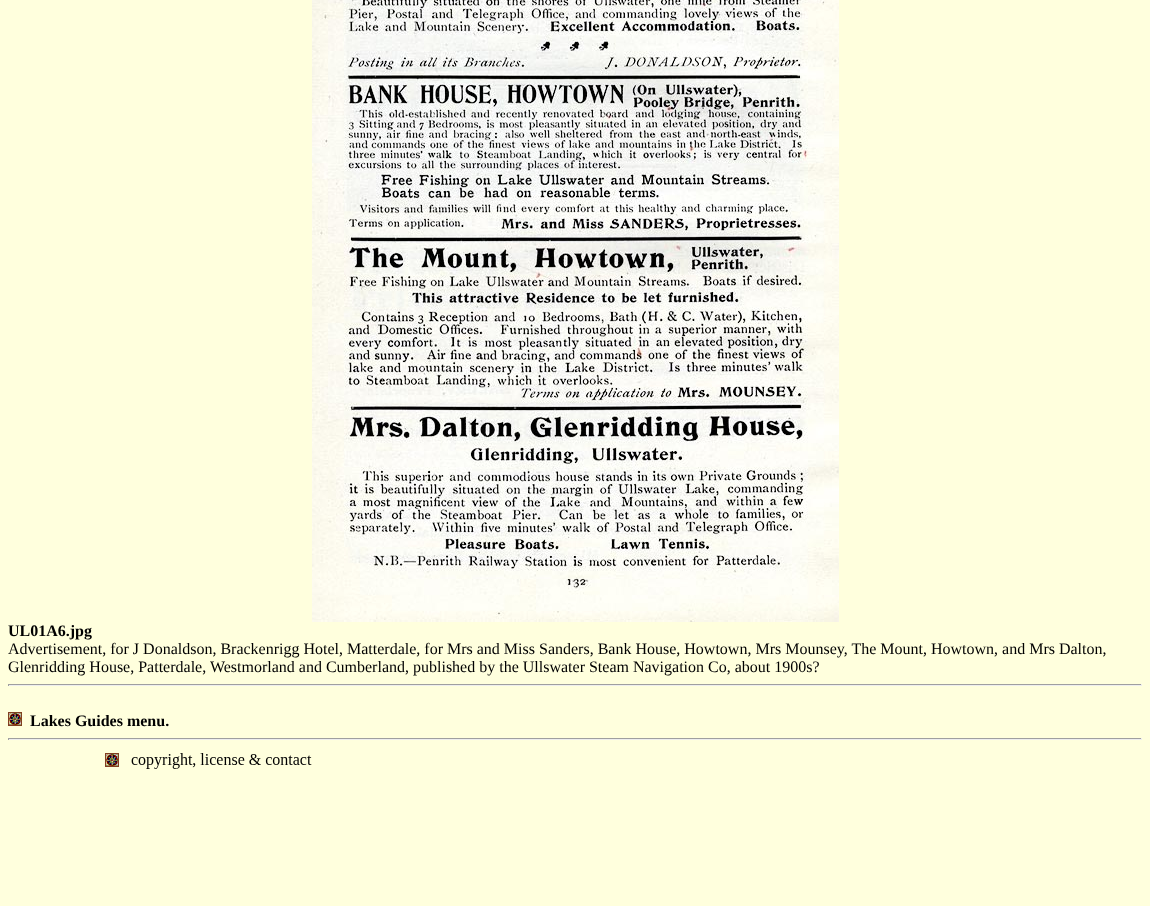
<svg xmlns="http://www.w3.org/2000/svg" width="1150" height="906">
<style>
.a{font:bold 16px Liberation Serif;fill:#000}
.b{font:16px Liberation Serif;fill:#000}
</style>
<rect width="100%" height="100%" fill="#ffd"/>
<image href="1.png" x="312" y="0" width="527" height="622"/>
<path fill="#9f9f9f" d="M8 684h1134v1H8z"/>
<path fill="#eee" d="M1141 684h1v2H1141z"/>
<path fill="#eee" d="M8 685h1134v1H8z"/>
<path fill="#9f9f9f" d="M8 684h1v2H8z"/>
<image href="2.png" x="8" y="712" width="14" height="14"/>
<path fill="#9f9f9f" d="M8 738h1134v1H8z"/>
<path fill="#eee" d="M1141 738h1v2H1141z"/>
<path fill="#eee" d="M8 739h1134v1H8z"/>
<path fill="#9f9f9f" d="M8 738h1v2H8z"/>
<image href="3.png" x="105" y="753" width="207" height="16"/>
<text class="a" x="8" y="636">UL01A6.jpg</text>
<text class="b" x="8" y="654">Advertisement, for J Donaldson, Brackenrigg Hotel, Matterdale, for Mrs and Miss Sanders, Bank House, Howtown, Mrs Mounsey, The Mount, Howtown, and Mrs Dalton,</text>
<text class="b" x="8" y="672">Glenridding House, Patterdale, Westmorland and Cumberland, published by the Ullswater Steam Navigation Co, about 1900s?</text>
<text class="a" x="30" y="726">Lakes Guides menu.</text>
</svg>
